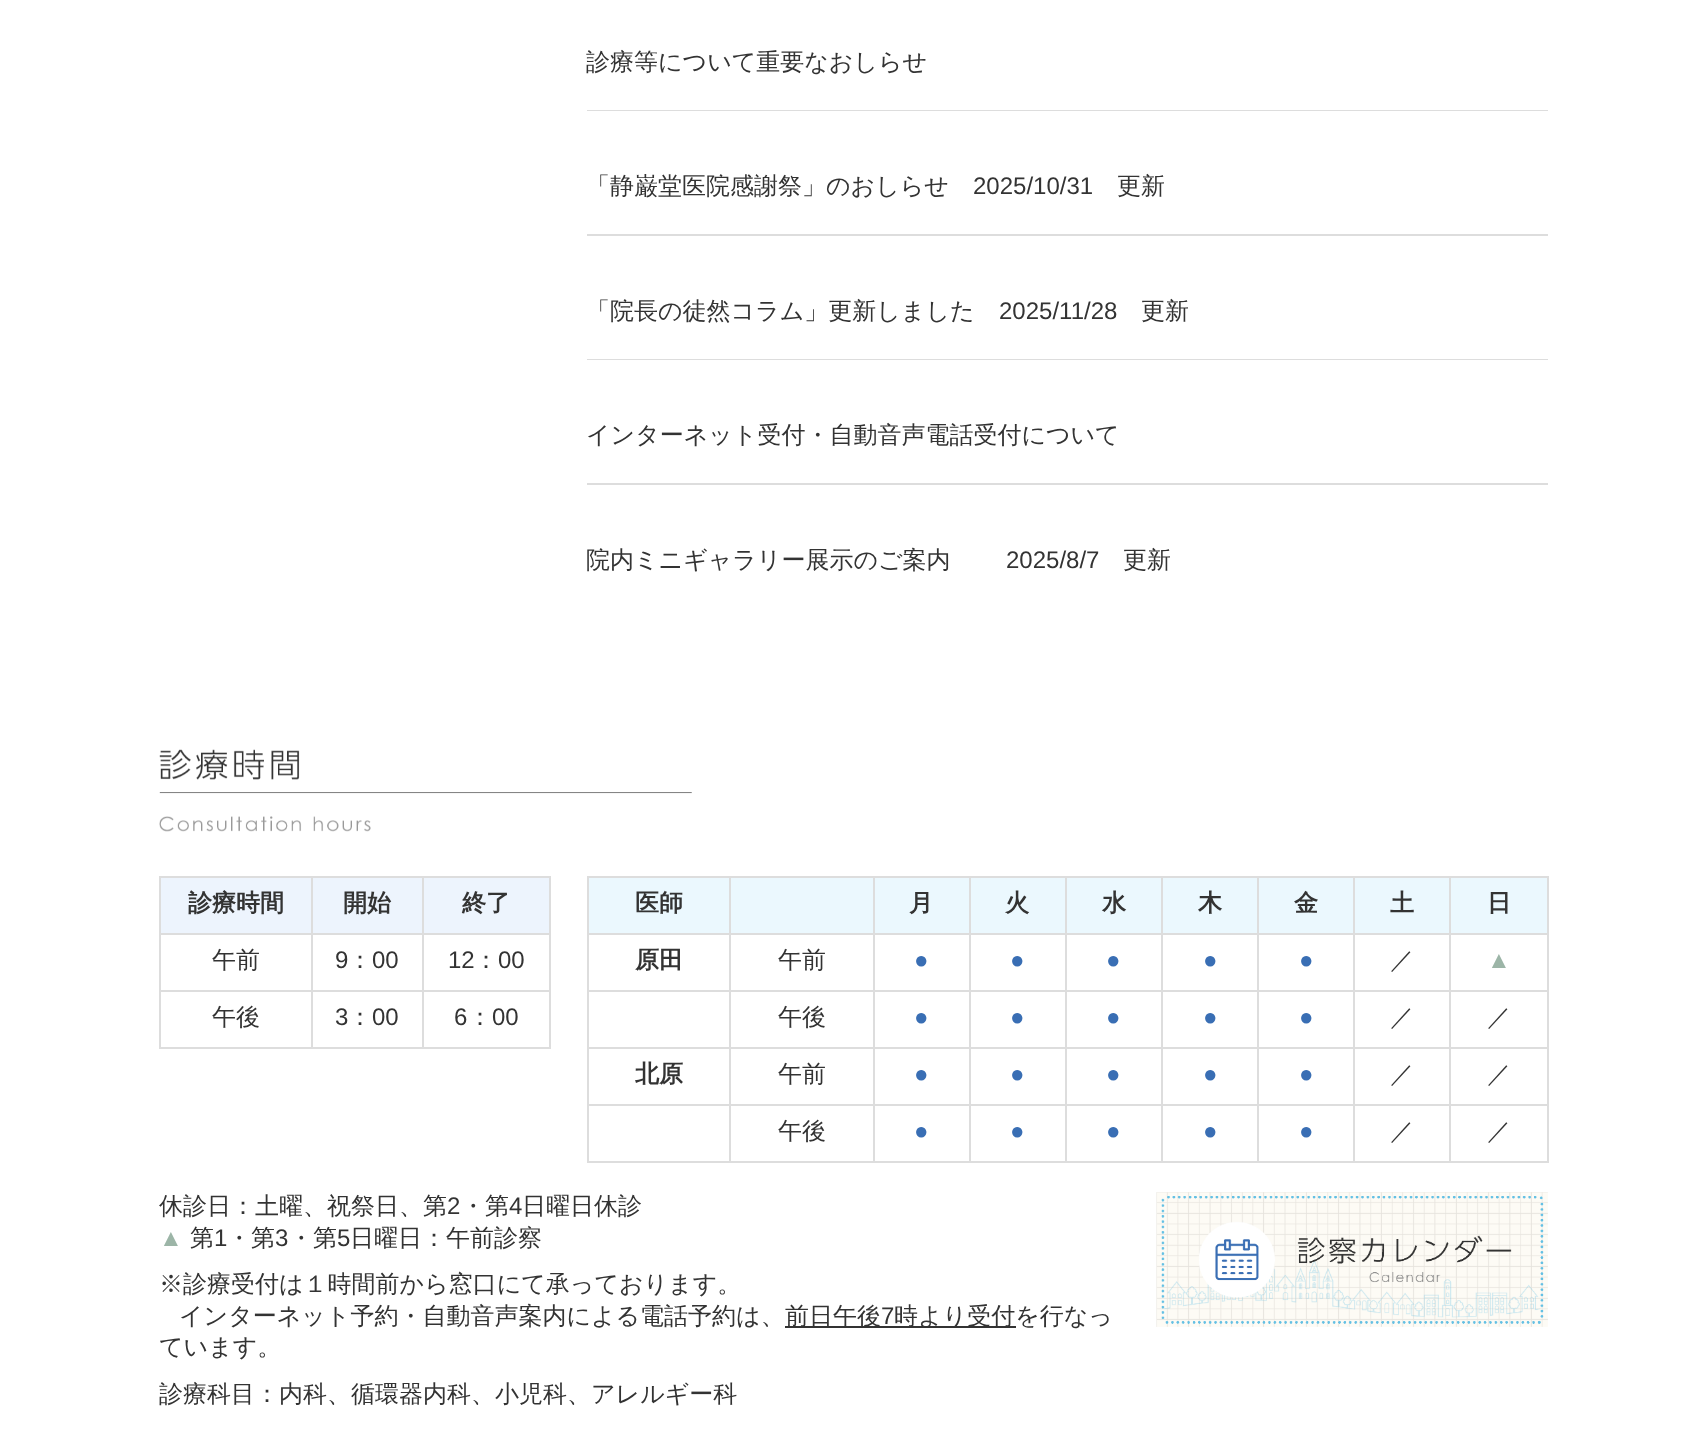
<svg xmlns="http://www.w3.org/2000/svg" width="1707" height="1445">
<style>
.a{font:500 24px WenQuanYi Zen Hei;fill:#333}
.b{font:24px Liberation Sans;fill:#333}
.c{font:bold 24px WenQuanYi Zen Hei;fill:#333}
.d{font:24px Liberation Sans;fill:#396eb4}
.e{font:24px Liberation Sans;fill:#9cb5a7}
</style>
<rect width="100%" height="100%" fill="#fff"/>
<path fill="#ddd" d="M587 110h961v1H587z"/>
<path fill="#ddd" d="M587 234h961v2H587z"/>
<path fill="#ddd" d="M587 359h961v1H587z"/>
<path fill="#ddd" d="M587 483h961v2H587z"/>
<image href="1.png" x="159" y="749" width="533" height="83"/>
<path fill="#edf4fd" d="M161 878h150v55H161z"/>
<path fill="#ddd" d="M422 876h129v2H422z"/>
<path fill="#ddd" d="M422 933h129v2H422z"/>
<path fill="#ddd" d="M422 990h129v2H422z"/>
<path fill="#ddd" d="M549 990h2v59H549z"/>
<path fill="#ddd" d="M422 1047h129v2H422z"/>
<path fill="#ddd" d="M422 990h2v59H422z"/>
<path fill="#ddd" d="M311 990h112v2H311z"/>
<path fill="#ddd" d="M422 933h2v59H422z"/>
<path fill="#ddd" d="M311 933h112v2H311z"/>
<path fill="#ddd" d="M422 876h2v59H422z"/>
<path fill="#ddd" d="M311 876h112v2H311z"/>
<path fill="#ddd" d="M311 1047h112v2H311z"/>
<path fill="#ddd" d="M311 990h2v59H311z"/>
<path fill="#ddd" d="M159 990h153v2H159z"/>
<path fill="#ddd" d="M311 933h2v59H311z"/>
<path fill="#ddd" d="M159 933h153v2H159z"/>
<path fill="#ddd" d="M311 876h2v59H311z"/>
<path fill="#ddd" d="M159 876h153v2H159z"/>
<path fill="#ddd" d="M159 1047h153v2H159z"/>
<path fill="#ddd" d="M159 990h2v59H159z"/>
<path fill="#ddd" d="M159 933h2v59H159z"/>
<path fill="#ddd" d="M159 876h2v59H159z"/>
<path fill="#edf4fd" d="M313 878h109v55H313z"/>
<path fill="#edf4fd" d="M424 878h125v55H424z"/>
<path fill="#ddd" d="M549 933h2v59H549z"/>
<path fill="#ddd" d="M549 876h2v59H549z"/>
<path fill="#ebf8fe" d="M589 878h140v55H589z"/>
<path fill="#ddd" d="M1449 876h99v2H1449z"/>
<path fill="#ddd" d="M1449 933h99v2H1449z"/>
<path fill="#ddd" d="M1449 990h99v2H1449z"/>
<path fill="#ddd" d="M1449 1047h99v2H1449z"/>
<path fill="#ddd" d="M1449 1104h99v2H1449z"/>
<path fill="#ddd" d="M1547 1104h2v59H1547z"/>
<path fill="#ddd" d="M1449 1161h99v2H1449z"/>
<path fill="#ddd" d="M1449 1104h2v59H1449z"/>
<path fill="#ddd" d="M1353 1104h98v2H1353z"/>
<path fill="#ddd" d="M1449 1047h2v59H1449z"/>
<path fill="#ddd" d="M1353 1047h98v2H1353z"/>
<path fill="#ddd" d="M1449 990h2v59H1449z"/>
<path fill="#ddd" d="M1353 990h98v2H1353z"/>
<path fill="#ddd" d="M1449 933h2v59H1449z"/>
<path fill="#ddd" d="M1353 933h98v2H1353z"/>
<path fill="#ddd" d="M1449 876h2v59H1449z"/>
<path fill="#ddd" d="M1353 876h98v2H1353z"/>
<path fill="#ddd" d="M1353 1161h98v2H1353z"/>
<path fill="#ddd" d="M1353 1104h2v59H1353z"/>
<path fill="#ddd" d="M1257 1104h98v2H1257z"/>
<path fill="#ddd" d="M1353 1047h2v59H1353z"/>
<path fill="#ddd" d="M1257 1047h98v2H1257z"/>
<path fill="#ddd" d="M1353 990h2v59H1353z"/>
<path fill="#ddd" d="M1257 990h98v2H1257z"/>
<path fill="#ddd" d="M1353 933h2v59H1353z"/>
<path fill="#ddd" d="M1257 933h98v2H1257z"/>
<path fill="#ddd" d="M1353 876h2v59H1353z"/>
<path fill="#ddd" d="M1257 876h98v2H1257z"/>
<path fill="#ddd" d="M1257 1161h98v2H1257z"/>
<path fill="#ddd" d="M1257 1104h2v59H1257z"/>
<path fill="#ddd" d="M1161 1104h98v2H1161z"/>
<path fill="#ddd" d="M1257 1047h2v59H1257z"/>
<path fill="#ddd" d="M1161 1047h98v2H1161z"/>
<path fill="#ddd" d="M1257 990h2v59H1257z"/>
<path fill="#ddd" d="M1161 990h98v2H1161z"/>
<path fill="#ddd" d="M1257 933h2v59H1257z"/>
<path fill="#ddd" d="M1161 933h98v2H1161z"/>
<path fill="#ddd" d="M1257 876h2v59H1257z"/>
<path fill="#ddd" d="M1161 876h98v2H1161z"/>
<path fill="#ddd" d="M1161 1161h98v2H1161z"/>
<path fill="#ddd" d="M1161 1104h2v59H1161z"/>
<path fill="#ddd" d="M1065 1104h98v2H1065z"/>
<path fill="#ddd" d="M1161 1047h2v59H1161z"/>
<path fill="#ddd" d="M1065 1047h98v2H1065z"/>
<path fill="#ddd" d="M1161 990h2v59H1161z"/>
<path fill="#ddd" d="M1065 990h98v2H1065z"/>
<path fill="#ddd" d="M1161 933h2v59H1161z"/>
<path fill="#ddd" d="M1065 933h98v2H1065z"/>
<path fill="#ddd" d="M1161 876h2v59H1161z"/>
<path fill="#ddd" d="M1065 876h98v2H1065z"/>
<path fill="#ddd" d="M1065 1161h98v2H1065z"/>
<path fill="#ddd" d="M1065 1104h2v59H1065z"/>
<path fill="#ddd" d="M969 1104h98v2H969z"/>
<path fill="#ddd" d="M1065 1047h2v59H1065z"/>
<path fill="#ddd" d="M969 1047h98v2H969z"/>
<path fill="#ddd" d="M1065 990h2v59H1065z"/>
<path fill="#ddd" d="M969 990h98v2H969z"/>
<path fill="#ddd" d="M1065 933h2v59H1065z"/>
<path fill="#ddd" d="M969 933h98v2H969z"/>
<path fill="#ddd" d="M1065 876h2v59H1065z"/>
<path fill="#ddd" d="M969 876h98v2H969z"/>
<path fill="#ddd" d="M969 1161h98v2H969z"/>
<path fill="#ddd" d="M969 1104h2v59H969z"/>
<path fill="#ddd" d="M873 1104h98v2H873z"/>
<path fill="#ddd" d="M969 1047h2v59H969z"/>
<path fill="#ddd" d="M873 1047h98v2H873z"/>
<path fill="#ddd" d="M969 990h2v59H969z"/>
<path fill="#ddd" d="M873 990h98v2H873z"/>
<path fill="#ddd" d="M969 933h2v59H969z"/>
<path fill="#ddd" d="M873 933h98v2H873z"/>
<path fill="#ddd" d="M969 876h2v59H969z"/>
<path fill="#ddd" d="M873 876h98v2H873z"/>
<path fill="#ddd" d="M873 1161h98v2H873z"/>
<path fill="#ddd" d="M873 1104h2v59H873z"/>
<path fill="#ddd" d="M729 1104h146v2H729z"/>
<path fill="#ddd" d="M873 1047h2v59H873z"/>
<path fill="#ddd" d="M729 1047h146v2H729z"/>
<path fill="#ddd" d="M873 990h2v59H873z"/>
<path fill="#ddd" d="M729 990h146v2H729z"/>
<path fill="#ddd" d="M873 933h2v59H873z"/>
<path fill="#ddd" d="M729 933h146v2H729z"/>
<path fill="#ddd" d="M873 876h2v59H873z"/>
<path fill="#ddd" d="M729 876h146v2H729z"/>
<path fill="#ddd" d="M729 1161h146v2H729z"/>
<path fill="#ddd" d="M729 1104h2v59H729z"/>
<path fill="#ddd" d="M587 1104h144v2H587z"/>
<path fill="#ddd" d="M729 1047h2v59H729z"/>
<path fill="#ddd" d="M587 1047h144v2H587z"/>
<path fill="#ddd" d="M729 990h2v59H729z"/>
<path fill="#ddd" d="M587 990h144v2H587z"/>
<path fill="#ddd" d="M729 933h2v59H729z"/>
<path fill="#ddd" d="M587 933h144v2H587z"/>
<path fill="#ddd" d="M729 876h2v59H729z"/>
<path fill="#ddd" d="M587 876h144v2H587z"/>
<path fill="#ddd" d="M587 1161h144v2H587z"/>
<path fill="#ddd" d="M587 1104h2v59H587z"/>
<path fill="#ddd" d="M587 1047h2v59H587z"/>
<path fill="#ddd" d="M587 990h2v59H587z"/>
<path fill="#ddd" d="M587 933h2v59H587z"/>
<path fill="#ddd" d="M587 876h2v59H587z"/>
<path fill="#ebf8fe" d="M731 878h142v55H731z"/>
<path fill="#ebf8fe" d="M875 878h94v55H875z"/>
<path fill="#ebf8fe" d="M971 878h94v55H971z"/>
<path fill="#ebf8fe" d="M1067 878h94v55H1067z"/>
<path fill="#ebf8fe" d="M1163 878h94v55H1163z"/>
<path fill="#ebf8fe" d="M1259 878h94v55H1259z"/>
<path fill="#ebf8fe" d="M1355 878h94v55H1355z"/>
<path fill="#ebf8fe" d="M1451 878h96v55H1451z"/>
<path fill="#ddd" d="M1547 1047h2v59H1547z"/>
<path fill="#ddd" d="M1547 990h2v59H1547z"/>
<path fill="#ddd" d="M1547 933h2v59H1547z"/>
<path fill="#ddd" d="M1547 876h2v59H1547z"/>
<path fill="#333" d="M785 1326h231v2H785z"/>
<image href="2.png" x="1156" y="1192" width="392" height="135"/>
<text class="a" x="586" y="70">診療等について重要なおしらせ</text>
<text class="a" x="586" y="194">「静巌堂医院感謝祭」のおしらせ</text>
<text class="b" x="973" y="194">2025/10/31</text>
<text class="a" x="1117" y="194">更新</text>
<text class="a" x="586" y="319">「院長の徒然コラム」更新しました</text>
<text class="b" x="999" y="319">2025/11/28</text>
<text class="a" x="1141" y="319">更新</text>
<text class="a" x="586" y="443">インターネット受付・自動音声電話受付について</text>
<text class="a" x="586" y="568">院内ミニギャラリー展示のご案内</text>
<text class="b" x="1006" y="568">2025/8/7</text>
<text class="a" x="1123" y="568">更新</text>
<text class="c" x="188" y="911">診療時間</text>
<text class="c" x="343" y="911">開始</text>
<text class="c" x="462" y="911">終了</text>
<text class="a" x="212" y="968">午前</text>
<text class="b" x="335" y="968">9</text>
<text class="a" x="348" y="968">：</text>
<text class="b" x="372" y="968">00</text>
<text class="b" x="448" y="968">12</text>
<text class="a" x="474" y="968">：</text>
<text class="b" x="498" y="968">00</text>
<text class="a" x="212" y="1025">午後</text>
<text class="b" x="335" y="1025">3</text>
<text class="a" x="348" y="1025">：</text>
<text class="b" x="372" y="1025">00</text>
<text class="b" x="454" y="1025">6</text>
<text class="a" x="468" y="1025">：</text>
<text class="b" x="492" y="1025">00</text>
<text class="c" x="635" y="911">医師</text>
<text class="c" x="909" y="911">月</text>
<text class="c" x="1005" y="911">火</text>
<text class="c" x="1102" y="911">水</text>
<text class="c" x="1198" y="911">木</text>
<text class="c" x="1294" y="911">金</text>
<text class="c" x="1390" y="911">土</text>
<text class="c" x="1487" y="911">日</text>
<text class="c" x="635" y="968">原田</text>
<text class="a" x="778" y="968">午前</text>
<text class="d" x="914" y="968">●</text>
<text class="d" x="1010" y="968">●</text>
<text class="d" x="1106" y="968">●</text>
<text class="d" x="1203" y="968">●</text>
<text class="d" x="1299" y="968">●</text>
<text class="a" x="1390" y="968">／</text>
<text class="e" x="1487" y="968">▲</text>
<text class="a" x="778" y="1025">午後</text>
<text class="d" x="914" y="1025">●</text>
<text class="d" x="1010" y="1025">●</text>
<text class="d" x="1106" y="1025">●</text>
<text class="d" x="1203" y="1025">●</text>
<text class="d" x="1299" y="1025">●</text>
<text class="a" x="1390" y="1025">／</text>
<text class="a" x="1487" y="1025">／</text>
<text class="c" x="635" y="1082">北原</text>
<text class="a" x="778" y="1082">午前</text>
<text class="d" x="914" y="1082">●</text>
<text class="d" x="1010" y="1082">●</text>
<text class="d" x="1106" y="1082">●</text>
<text class="d" x="1203" y="1082">●</text>
<text class="d" x="1299" y="1082">●</text>
<text class="a" x="1390" y="1082">／</text>
<text class="a" x="1487" y="1082">／</text>
<text class="a" x="778" y="1139">午後</text>
<text class="d" x="914" y="1139">●</text>
<text class="d" x="1010" y="1139">●</text>
<text class="d" x="1106" y="1139">●</text>
<text class="d" x="1203" y="1139">●</text>
<text class="d" x="1299" y="1139">●</text>
<text class="a" x="1390" y="1139">／</text>
<text class="a" x="1487" y="1139">／</text>
<text class="a" x="159" y="1214">休診日：土曜、祝祭日、第</text>
<text class="b" x="447" y="1214">2</text>
<text class="a" x="461" y="1214">・第</text>
<text class="b" x="509" y="1214">4</text>
<text class="a" x="522" y="1214">日曜日休診</text>
<text class="e" x="159" y="1246">▲</text>
<text class="a" x="190" y="1246">第</text>
<text class="b" x="214" y="1246">1</text>
<text class="a" x="227" y="1246">・第</text>
<text class="b" x="275" y="1246">3</text>
<text class="a" x="289" y="1246">・第</text>
<text class="b" x="337" y="1246">5</text>
<text class="a" x="350" y="1246">日曜日：午前診察</text>
<text class="a" x="159" y="1292">※診療受付は１時間前から窓口にて承っております。</text>
<text class="a" x="179" y="1324">インターネット予約・自動音声案内による電話予約は、</text>
<text class="a" x="785" y="1324">前日午後</text>
<text class="b" x="881" y="1324">7</text>
<text class="a" x="894" y="1324">時より受付を行なっ</text>
<text class="a" x="159" y="1355">ています。</text>
<text class="a" x="159" y="1402">診療科目：内科、循環器内科、小児科、アレルギー科</text>
</svg>
